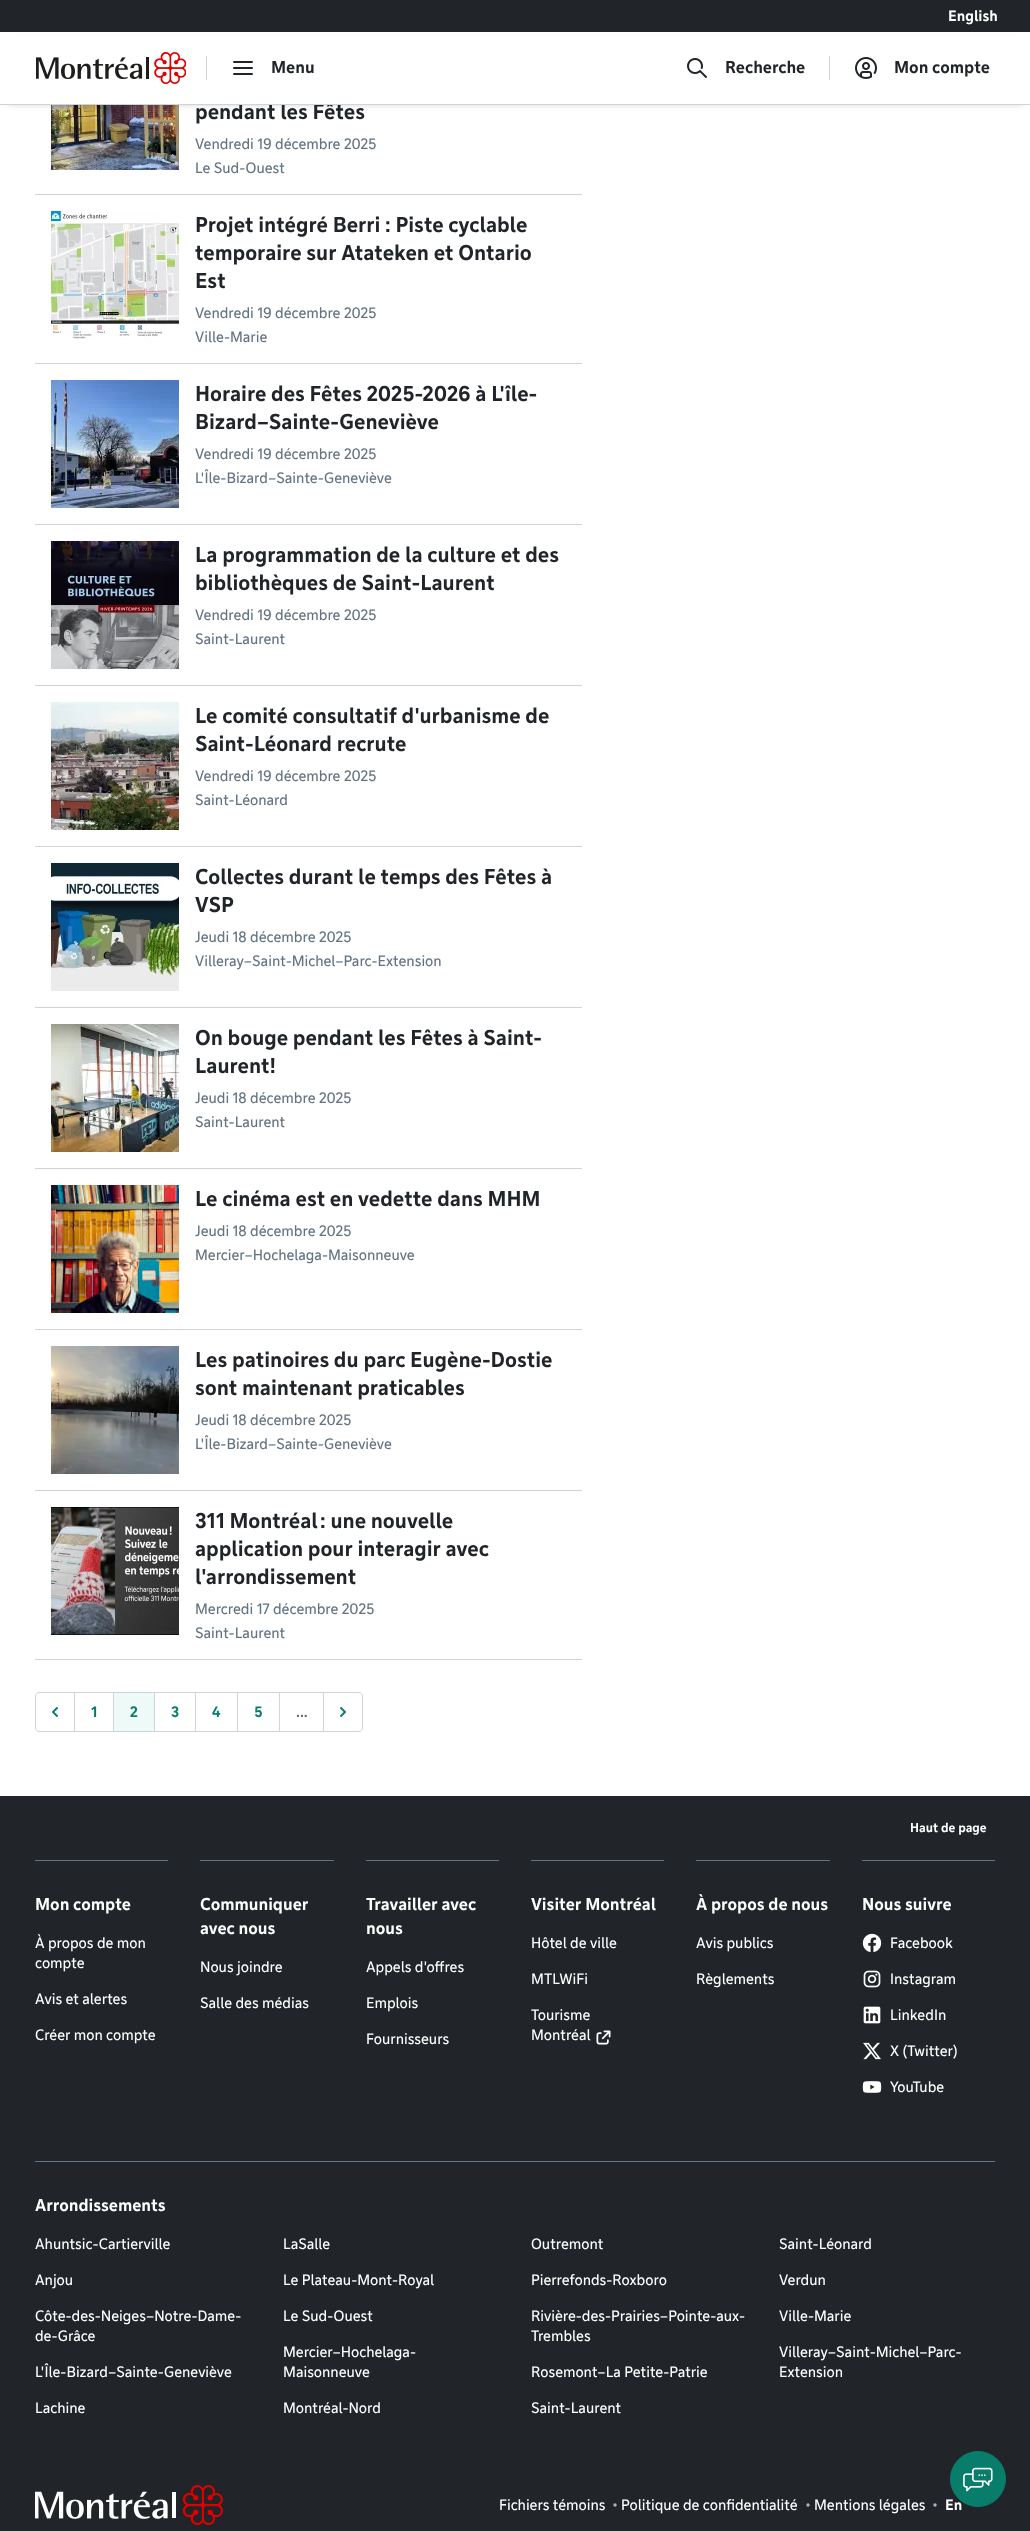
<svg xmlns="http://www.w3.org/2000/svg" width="1030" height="2531">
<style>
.a{font:600 14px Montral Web;fill:#fff}
.b{font:600 20px Montral Web;fill:#212529}
.c{font:600 16px Montral Web;fill:#212529}
.d{font:14px Montral Web;fill:#637381}
.e{font:600 14px Montral Web;fill:#097d6c}
.f{font:600 14px Montral Web;fill:#637381}
.g{font:600 12px Montral Web;fill:#fff}
.h{font:600 16px Montral Web;fill:#fff}
.i{font:14px Montral Web;fill:#fff}
</style>
<rect width="100%" height="100%" fill="#fff"/>
<image href="5.png" x="51" y="105" width="128" height="65"/>
<path fill="#00000080" filter="blur(4px)" d="M8 44h1014v57H8z"/>
<path fill="#212529" d="M0 0h1030v32H0z"/>
<path fill="#ced4da" d="M35 1659h547v1H35z"/>
<path fill="#ced4da" d="M35 194h547v1H35z"/>
<image href="6.png" x="51" y="211" width="128" height="128"/>
<path fill="#ced4da" d="M35 363h547v1H35z"/>
<image href="7.png" x="51" y="380" width="128" height="128"/>
<path fill="#ced4da" d="M35 524h547v1H35z"/>
<image href="8.png" x="51" y="541" width="128" height="128"/>
<path fill="#ced4da" d="M35 685h547v1H35z"/>
<image href="9.png" x="51" y="702" width="128" height="128"/>
<path fill="#ced4da" d="M35 846h547v1H35z"/>
<image href="10.png" x="51" y="863" width="128" height="128"/>
<path fill="#ced4da" d="M35 1007h547v1H35z"/>
<image href="11.png" x="51" y="1024" width="128" height="128"/>
<path fill="#ced4da" d="M35 1168h547v1H35z"/>
<image href="12.png" x="51" y="1185" width="128" height="128"/>
<path fill="#ced4da" d="M35 1329h547v1H35z"/>
<image href="13.png" x="51" y="1346" width="128" height="128"/>
<path fill="#ced4da" d="M35 1490h547v1H35z"/>
<image href="14.png" x="51" y="1507" width="128" height="128"/>
<path fill="none" stroke="#ced4da" d="M39 1692.5h35.5v39h-35.5c-2 0-3.5-1.5-3.5-3.5v-32c0-2 1.5-3.5 3.5-3.5z"/>
<image href="15.png" x="52" y="1707" width="6" height="10"/>
<path fill="none" stroke="#ced4da" d="M74.5 1692.5h39v39H74.5z"/>
<path fill="none" stroke="#ced4da" d="M154.5 1692.5h41v39H154.5z"/>
<path fill="#eefaf8" stroke="#ced4da" d="M113.5 1692.5h41v39H113.5z"/>
<path fill="none" stroke="#ced4da" d="M195.5 1692.5h42v39H195.5z"/>
<path fill="none" stroke="#ced4da" d="M237.5 1692.5h42v39H237.5z"/>
<path fill="none" stroke="#ced4da" d="M279.5 1692.5h44v39H279.5z"/>
<path fill="#fff" stroke="#ced4da" d="M323.5 1692.5h35.5c2 0 3.5 1.5 3.5 3.5v32c0 2-1.5 3.5-3.5 3.5h-35.5z"/>
<image href="16.png" x="340" y="1707" width="6" height="10"/>
<path fill="#212529" d="M0 1796h1030v735H0z"/>
<path fill="#637381" d="M35 1860h133v1H35z"/>
<path fill="#637381" d="M200 1860h134v1H200z"/>
<path fill="#637381" d="M366 1860h133v1H366z"/>
<path fill="#637381" d="M531 1860h133v1H531z"/>
<image href="18.png" x="596" y="2030" width="15" height="15"/>
<path fill="#637381" d="M696 1860h134v1H696z"/>
<path fill="#637381" d="M862 1860h133v1H862z"/>
<image href="19.png" x="862" y="1933" width="20" height="20"/>
<image href="20.png" x="863" y="1970" width="18" height="18"/>
<image href="21.png" x="863" y="2006" width="18" height="18"/>
<image href="22.png" x="863" y="2042" width="18" height="18"/>
<image href="23.png" x="862" y="2081" width="20" height="12"/>
<path fill="#637381" d="M35 2161h960v1H35z"/>
<image href="24.png" x="35" y="2485" width="188" height="40"/>
<circle fill="#adb2bd" cx="615" cy="2505" r="1.7"/>
<circle fill="#adb2bd" cx="808" cy="2505" r="1.7"/>
<circle fill="#adb2bd" cx="935" cy="2505" r="1.7"/>
<text class="a" x="948" y="21">English</text>
<text class="b" x="195" y="119">pendant les Fêtes</text>
<path fill="#fff" d="M0 36h1030v68H0z"/>
<image href="4.png" x="855" y="57" width="22" height="22"/>
<image href="3.png" x="687" y="58" width="20" height="20"/>
<image href="2.png" x="233" y="61" width="20" height="14"/>
<image href="1.png" x="36" y="52" width="150" height="32"/>
<text class="c" x="894" y="73">Mon compte</text>
<path fill="#ced4da" d="M829 56h1v24H829z"/>
<text class="c" x="725" y="73">Recherche</text>
<text class="c" x="271" y="73">Menu</text>
<path fill="#ced4da" d="M206 56h1v24H206z"/>
<path fill="#ced4da" d="M0 104h1030v1H0z"/>
<text class="d" x="195" y="149">Vendredi 19 décembre 2025</text>
<text class="d" x="195" y="173">Le Sud-Ouest</text>
<text class="b" x="195" y="232">Projet intégré Berri : Piste cyclable</text>
<text class="b" x="195" y="260">temporaire sur Atateken et Ontario</text>
<text class="b" x="195" y="288">Est</text>
<text class="d" x="195" y="318">Vendredi 19 décembre 2025</text>
<text class="d" x="195" y="342">Ville-Marie</text>
<text class="b" x="195" y="401">Horaire des Fêtes 2025-2026 à L'île-</text>
<text class="b" x="195" y="429">Bizard–Sainte-Geneviève</text>
<text class="d" x="195" y="459">Vendredi 19 décembre 2025</text>
<text class="d" x="195" y="483">L'Île-Bizard–Sainte-Geneviève</text>
<text class="b" x="195" y="562">La programmation de la culture et des</text>
<text class="b" x="195" y="590">bibliothèques de Saint-Laurent</text>
<text class="d" x="195" y="620">Vendredi 19 décembre 2025</text>
<text class="d" x="195" y="644">Saint-Laurent</text>
<text class="b" x="195" y="723">Le comité consultatif d'urbanisme de</text>
<text class="b" x="195" y="751">Saint-Léonard recrute</text>
<text class="d" x="195" y="781">Vendredi 19 décembre 2025</text>
<text class="d" x="195" y="805">Saint-Léonard</text>
<text class="b" x="195" y="884">Collectes durant le temps des Fêtes à</text>
<text class="b" x="195" y="912">VSP</text>
<text class="d" x="195" y="942">Jeudi 18 décembre 2025</text>
<text class="d" x="195" y="966">Villeray–Saint-Michel–Parc-Extension</text>
<text class="b" x="195" y="1045">On bouge pendant les Fêtes à Saint-</text>
<text class="b" x="195" y="1073">Laurent!</text>
<text class="d" x="195" y="1103">Jeudi 18 décembre 2025</text>
<text class="d" x="195" y="1127">Saint-Laurent</text>
<text class="b" x="195" y="1206">Le cinéma est en vedette dans MHM</text>
<text class="d" x="195" y="1236">Jeudi 18 décembre 2025</text>
<text class="d" x="195" y="1260">Mercier–Hochelaga-Maisonneuve</text>
<text class="b" x="195" y="1367">Les patinoires du parc Eugène-Dostie</text>
<text class="b" x="195" y="1395">sont maintenant praticables</text>
<text class="d" x="195" y="1425">Jeudi 18 décembre 2025</text>
<text class="d" x="195" y="1449">L'Île-Bizard–Sainte-Geneviève</text>
<text class="b" x="195" y="1528">311 Montréal : une nouvelle</text>
<text class="b" x="195" y="1556">application pour interagir avec</text>
<text class="b" x="195" y="1584">l'arrondissement</text>
<text class="d" x="195" y="1614">Mercredi 17 décembre 2025</text>
<text class="d" x="195" y="1638">Saint-Laurent</text>
<text class="e" x="91" y="1717">1</text>
<text class="e" x="130" y="1717">2</text>
<text class="e" x="171" y="1717">3</text>
<text class="e" x="212" y="1717">4</text>
<text class="e" x="254" y="1717">5</text>
<text class="f" x="296" y="1717">...</text>
<text class="g" x="910" y="1832">Haut de page</text>
<text class="h" x="35" y="1910">Mon compte</text>
<text class="i" x="35" y="1948">À propos de mon</text>
<text class="i" x="35" y="1968">compte</text>
<text class="i" x="35" y="2004">Avis et alertes</text>
<text class="i" x="35" y="2040">Créer mon compte</text>
<text class="h" x="200" y="1910">Communiquer</text>
<text class="h" x="200" y="1934">avec nous</text>
<text class="i" x="200" y="1972">Nous joindre</text>
<text class="i" x="200" y="2008">Salle des médias</text>
<text class="h" x="366" y="1910">Travailler avec</text>
<text class="h" x="366" y="1934">nous</text>
<text class="i" x="366" y="1972">Appels d'offres</text>
<text class="i" x="366" y="2008">Emplois</text>
<text class="i" x="366" y="2044">Fournisseurs</text>
<text class="h" x="531" y="1910">Visiter Montréal</text>
<text class="i" x="531" y="1948">Hôtel de ville</text>
<text class="i" x="531" y="1984">MTLWiFi</text>
<text class="i" x="531" y="2020">Tourisme</text>
<text class="i" x="531" y="2040">Montréal</text>
<text class="h" x="696" y="1910">À propos de nous</text>
<text class="i" x="696" y="1948">Avis publics</text>
<text class="i" x="696" y="1984">Règlements</text>
<text class="h" x="862" y="1910">Nous suivre</text>
<text class="i" x="890" y="1948">Facebook</text>
<text class="i" x="890" y="1984">Instagram</text>
<text class="i" x="890" y="2020">LinkedIn</text>
<text class="i" x="890" y="2056">X (Twitter)</text>
<text class="i" x="890" y="2092">YouTube</text>
<text class="h" x="35" y="2211">Arrondissements</text>
<text class="i" x="35" y="2249">Ahuntsic-Cartierville</text>
<text class="i" x="283" y="2249">LaSalle</text>
<text class="i" x="531" y="2249">Outremont</text>
<text class="i" x="779" y="2249">Saint-Léonard</text>
<text class="i" x="35" y="2285">Anjou</text>
<text class="i" x="283" y="2285">Le Plateau-Mont-Royal</text>
<text class="i" x="531" y="2285">Pierrefonds-Roxboro</text>
<text class="i" x="779" y="2285">Verdun</text>
<text class="i" x="35" y="2321">Côte-des-Neiges–Notre-Dame-</text>
<text class="i" x="35" y="2341">de-Grâce</text>
<text class="i" x="283" y="2321">Le Sud-Ouest</text>
<text class="i" x="531" y="2321">Rivière-des-Prairies–Pointe-aux-</text>
<text class="i" x="531" y="2341">Trembles</text>
<text class="i" x="779" y="2321">Ville-Marie</text>
<text class="i" x="35" y="2377">L'Île-Bizard–Sainte-Geneviève</text>
<text class="i" x="283" y="2357">Mercier–Hochelaga-</text>
<text class="i" x="283" y="2377">Maisonneuve</text>
<text class="i" x="531" y="2377">Rosemont–La Petite-Patrie</text>
<text class="i" x="779" y="2357">Villeray–Saint-Michel–Parc-</text>
<text class="i" x="779" y="2377">Extension</text>
<text class="i" x="35" y="2413">Lachine</text>
<text class="i" x="283" y="2413">Montréal-Nord</text>
<text class="i" x="531" y="2413">Saint-Laurent</text>
<text class="i" x="499" y="2510">Fichiers témoins</text>
<text class="i" x="621" y="2510">Politique de confidentialité</text>
<text class="i" x="814" y="2510">Mentions légales</text>
<text class="a" x="945" y="2510">En</text>
<circle fill="#097d6c" stroke="#097d6c" cx="978" cy="2479" r="27.5"/>
<image href="17.png" x="963" y="2467" width="30" height="25"/>
</svg>
